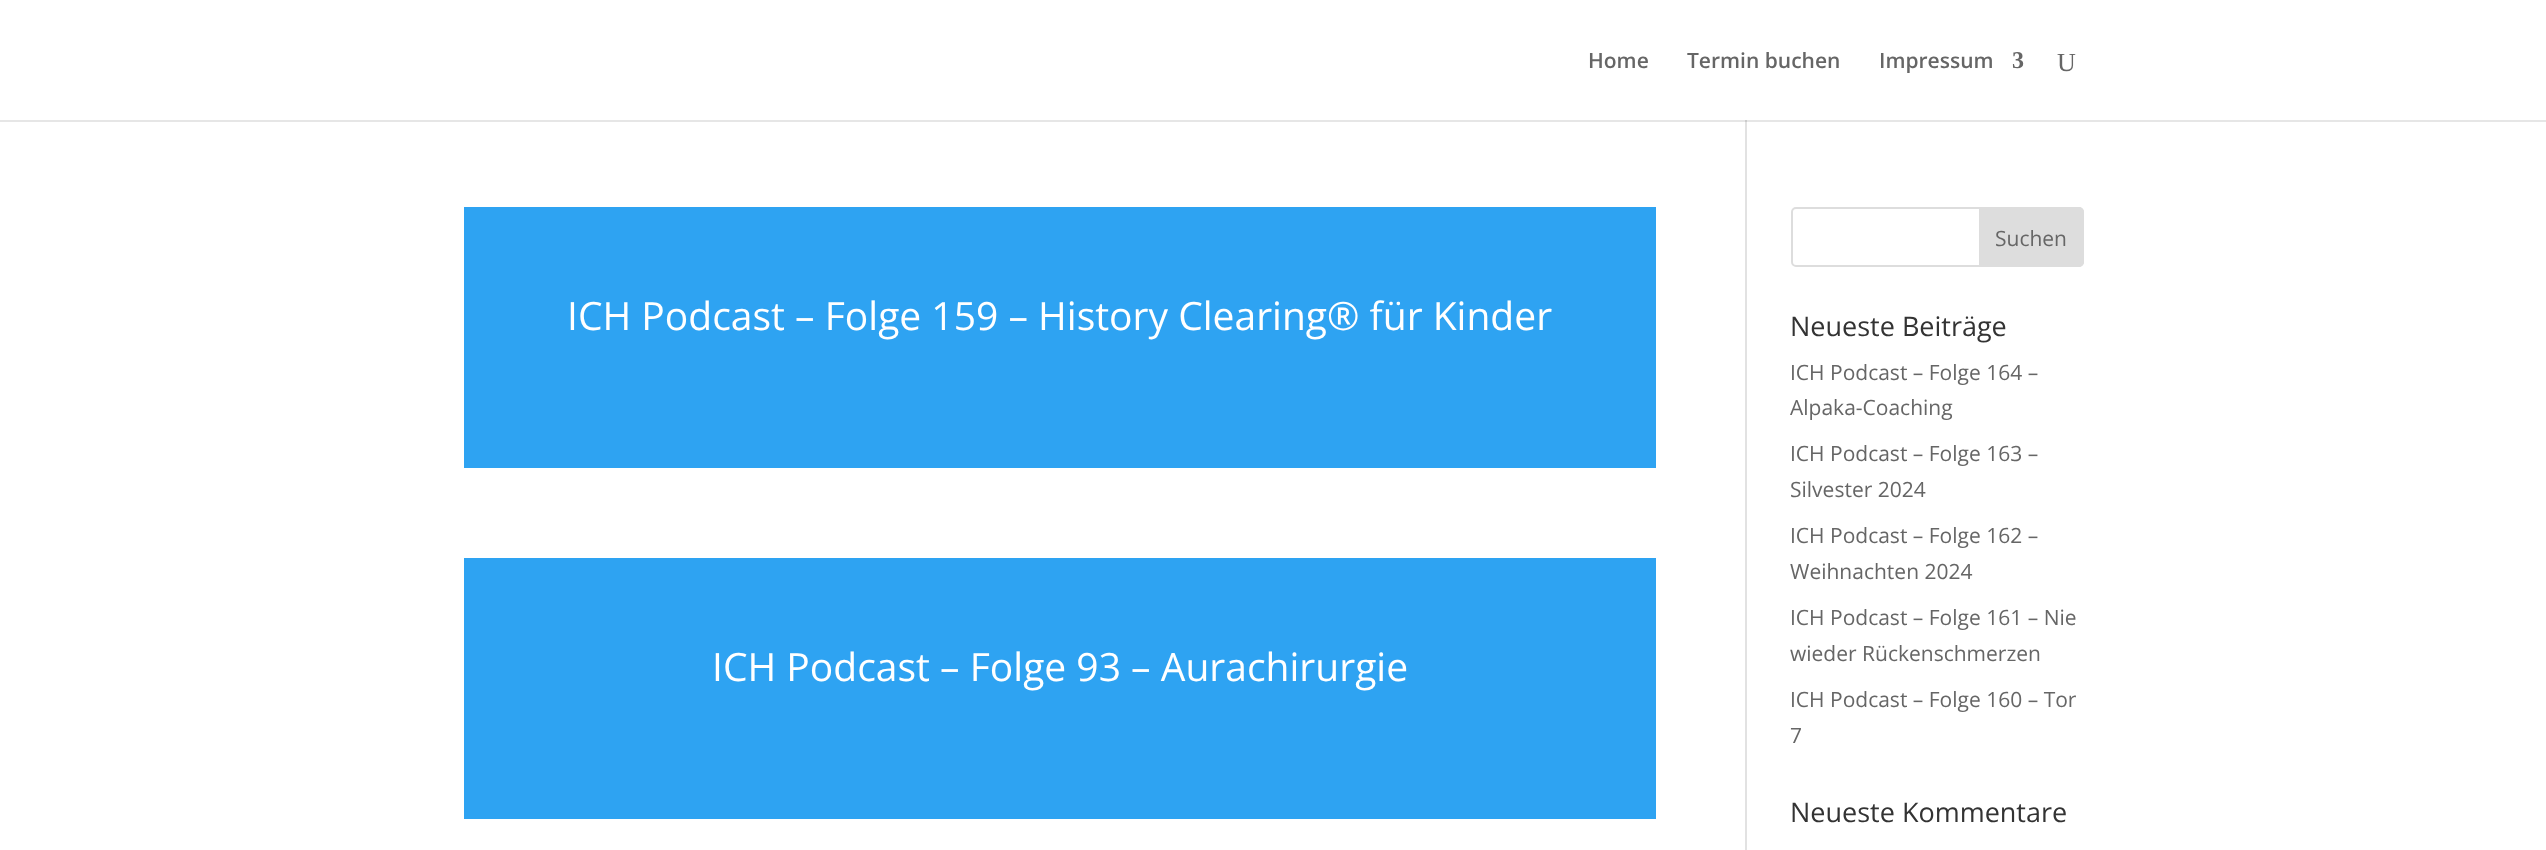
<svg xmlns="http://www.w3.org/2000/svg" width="2546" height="850">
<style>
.a{font:600 21px Open Sans;fill:#666}
.b{font:bold 24px Liberation Serif;fill:#666}
.c{font:26px Liberation Serif;fill:#666}
.d{font:39px Open Sans;fill:#fff}
.e{font:21px Open Sans;fill:#666}
.f{font:27px Open Sans;fill:#333}
</style>
<rect width="100%" height="100%" fill="#fff"/>
<path fill="#e6e6e6" d="M0 120h2546v2H0z"/>
<path fill="#e2e2e2" d="M1745 120h2v730H1745z"/>
<path fill="#cbcbcb" d="M1745 120h2v2H1745z"/>
<path fill="#2ea3f2" d="M464 207h1192v261H464z"/>
<path fill="#2ea3f2" d="M464 558h1192v261H464z"/>
<rect fill="none" stroke="#ddd" stroke-width="2" x="1792" y="208" width="291" height="58" rx="4"/>
<path fill="#ddd" stroke="#ddd" stroke-width="2" d="M1980 208h99c2 0 4 2 4 4v50c0 2-2 4-4 4h-99z"/>
<text class="a" x="1588" y="68">Home</text>
<text class="a" x="1687" y="68">Termin buchen</text>
<text class="a" x="1879" y="68">Impressum</text>
<text class="b" x="2012" y="68">3</text>
<text class="c" x="2057" y="71">U</text>
<text class="d" x="567" y="330">ICH Podcast – Folge 159 – History Clearing® für Kinder</text>
<text class="d" x="712" y="681">ICH Podcast – Folge 93 – Aurachirurgie</text>
<text class="e" x="1995" y="246">Suchen</text>
<text class="f" x="1790" y="336">Neueste Beiträge</text>
<text class="e" x="1790" y="380">ICH Podcast – Folge 164 –</text>
<text class="e" x="1790" y="415">Alpaka-Coaching</text>
<text class="e" x="1790" y="461">ICH Podcast – Folge 163 –</text>
<text class="e" x="1790" y="497">Silvester 2024</text>
<text class="e" x="1790" y="543">ICH Podcast – Folge 162 –</text>
<text class="e" x="1790" y="579">Weihnachten 2024</text>
<text class="e" x="1790" y="625">ICH Podcast – Folge 161 – Nie</text>
<text class="e" x="1790" y="661">wieder Rückenschmerzen</text>
<text class="e" x="1790" y="707">ICH Podcast – Folge 160 – Tor</text>
<text class="e" x="1790" y="743">7</text>
<text class="f" x="1790" y="822">Neueste Kommentare</text>
</svg>
